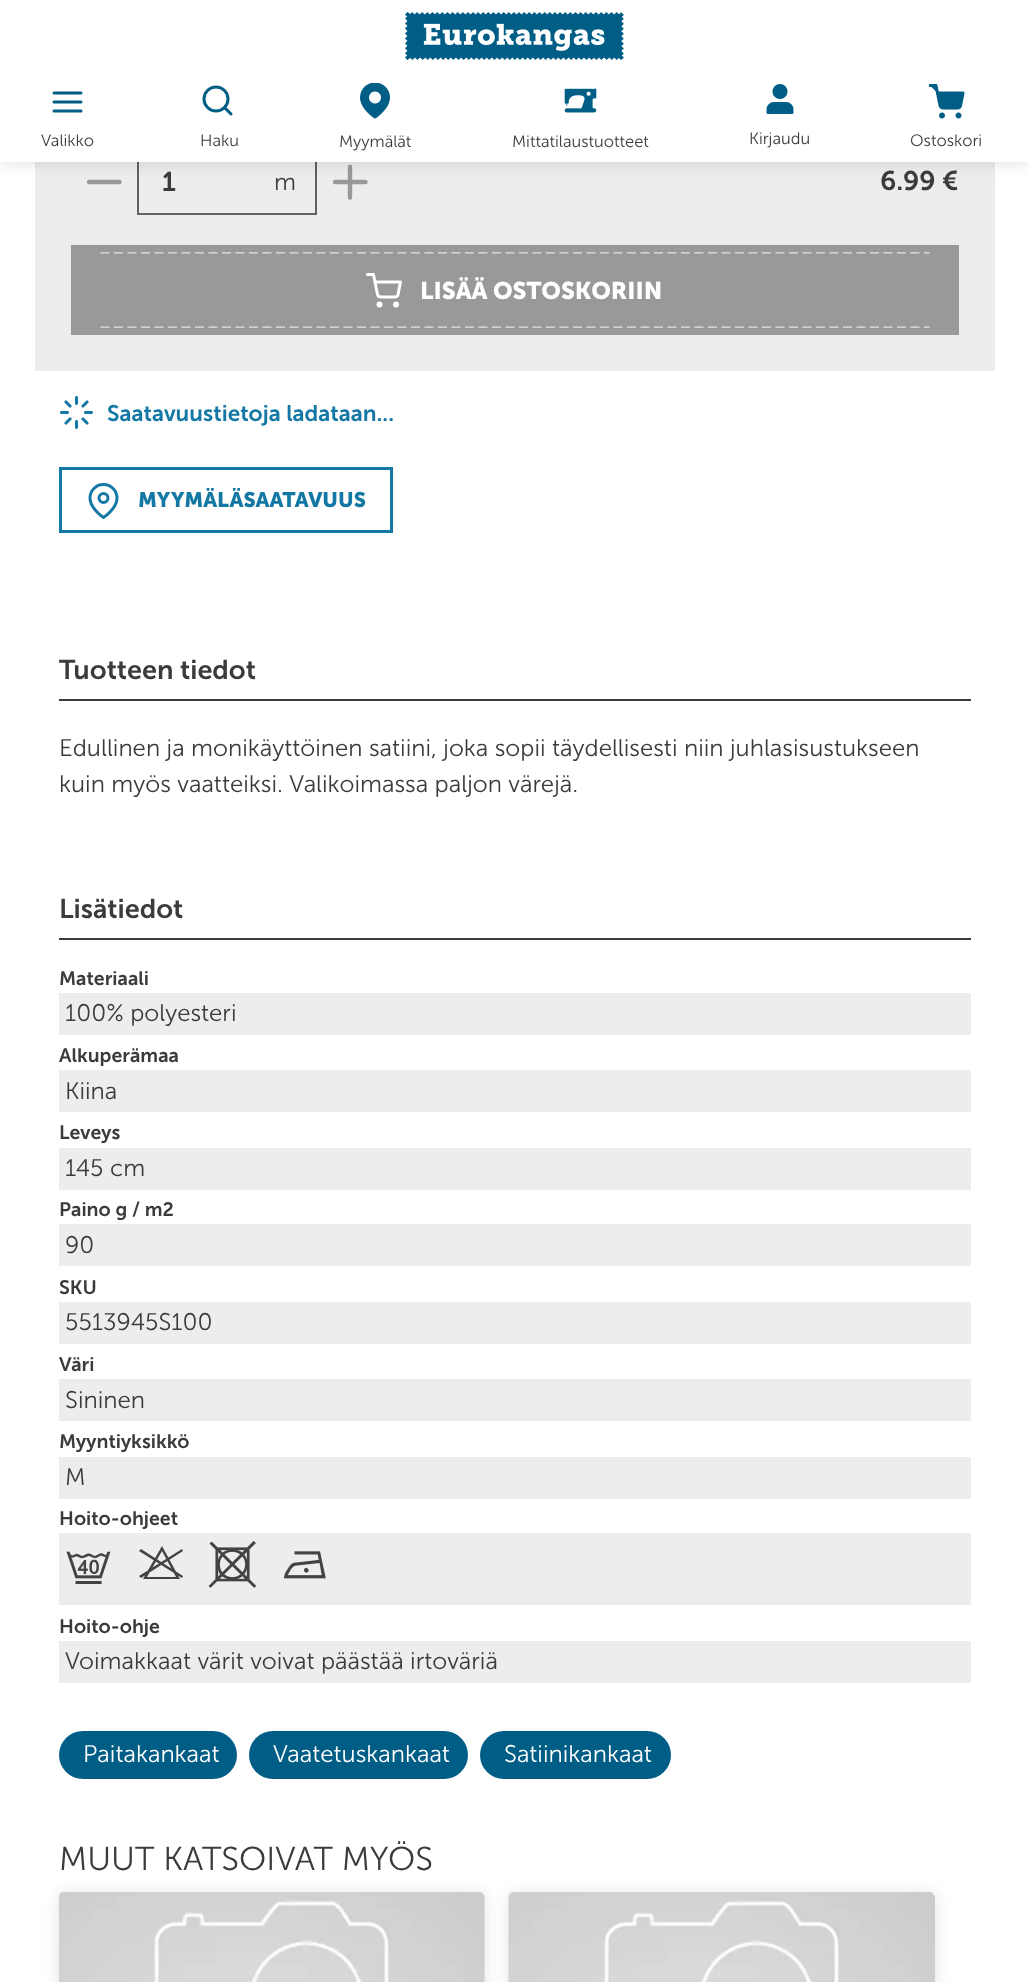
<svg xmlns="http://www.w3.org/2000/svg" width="1028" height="1982">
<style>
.a{font:300 16.5px 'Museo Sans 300';fill:#3b3b3b}
.b{font:600 27px 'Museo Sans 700';fill:#3b3b3b}
.c{font:300 24px 'Museo Sans 300';fill:#3b3b3b}
.d{font:bold 24px 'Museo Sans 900';fill:#fff}
.e{font:600 22.5px 'Museo Sans 700';fill:#1378a4}
.f{font:bold 21px 'Museo Sans 900';fill:#1378a4}
.g{font:600 19.5px 'Museo Sans 700';fill:#3b3b3b}
.h{font:300 24px 'Museo Sans 300';fill:#fff}
.i{font:300 33px 'Museo Sans 300';fill:#3b3b3b}
</style>
<rect width="100%" height="100%" fill="#fff"/>
<path fill="#ededed" d="M35 162h960v209H35z"/>
<path fill="none" stroke="#999" stroke-width="4.4" stroke-linecap="round" stroke-linejoin="round" d="M89 182h30.5"/>
<path fill="none" stroke="#626262" stroke-width="2" d="M138 150h178v64H138z"/>
<path fill="none" stroke="#999" stroke-width="4.4" stroke-linecap="round" stroke-linejoin="round" d="M350 167v30.5m-15-15.5h30.5"/>
<path fill="#0000001c" filter="blur(7.5px)" d="M0 2h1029v162H0z"/>
<path fill="#fff" d="M0 0h1028v162H0z"/>
<image href="1.png" x="405" y="12" width="219" height="48"/>
<path fill="none" stroke="#005d86" stroke-width="3" stroke-linecap="round" stroke-linejoin="round" d="M54 102h27m-27-9h27m-27 18h27"/>
<circle fill="none" stroke="#005d86" stroke-width="3" cx="216" cy="99" r="12"/>
<path fill="none" stroke="#005d86" stroke-width="3" stroke-linecap="round" stroke-linejoin="round" d="M231 114l-6.5-6.5"/>
<image href="2.png" x="360" y="83" width="30" height="36"/>
<image href="3.png" x="564" y="88" width="33" height="25"/>
<image href="4.png" x="766" y="84" width="28" height="30"/>
<image href="5.png" x="929" y="84" width="36" height="35"/>
<path fill="#999" d="M71 245h888v90H71z"/>
<image href="6.png" x="100" y="252" width="830" height="76"/>
<path fill="none" stroke="#fff" stroke-width="3" stroke-linecap="round" stroke-linejoin="round" d="M367.5 274.5h6l4 20c.5 1.5 1.5 2.5 3 2.5h14.5c1.5 0 3-1 3-2.5l2.5-12.5h-25.5"/>
<circle fill="none" stroke="#fff" stroke-width="3" cx="379.5" cy="304.5" r="1.5"/>
<circle fill="none" stroke="#fff" stroke-width="3" cx="396" cy="304.5" r="1.5"/>
<image href="7.png" x="60" y="396" width="33" height="33"/>
<path fill="none" stroke="#1378a4" stroke-width="3" d="M60.5 468.5h331v63H60.5z"/>
<path fill="none" stroke="#1378a4" stroke-width="3" stroke-linecap="round" stroke-linejoin="round" d="M117 498c0 10.5-13.5 19.5-13.5 19.5c0 0-13.5-9-13.5-19.5c0-7.5 6-13.5 13.5-13.5c7.5 0 13.5 6 13.5 13.5z"/>
<circle fill="none" stroke="#1378a4" stroke-width="3" cx="103.5" cy="498" r="4.5"/>
<path fill="#3b3b3b" d="M59 699h912v2H59z"/>
<path fill="#3b3b3b" d="M59 938h912v2H59z"/>
<path fill="#ededed" d="M59 993h912v42H59z"/>
<path fill="#ededed" d="M59 1070h912v42H59z"/>
<path fill="#ededed" d="M59 1148h912v42H59z"/>
<path fill="#ededed" d="M59 1224h912v42H59z"/>
<path fill="#ededed" d="M59 1302h912v42H59z"/>
<path fill="#ededed" d="M59 1379h912v42H59z"/>
<path fill="#ededed" d="M59 1457h912v42H59z"/>
<path fill="#ededed" d="M59 1533h912v72H59z"/>
<image href="8.png" x="66" y="1551" width="45" height="33"/>
<path fill="#434343" d="M139 1576l43-27l1 2l-42 27zm0-25l2-2l42 27l-1 2zm4 28l19-33l18 33zm4-2h29l-14-26z"/>
<image href="9.png" x="208" y="1540" width="49" height="48"/>
<image href="10.png" x="283" y="1551" width="43" height="28"/>
<path fill="#ededed" d="M59 1641h912v42H59z"/>
<rect fill="#005d86" x="59" y="1731" width="178" height="48" rx="24"/>
<rect fill="#005d86" x="249" y="1731" width="219" height="48" rx="24"/>
<rect fill="#005d86" x="480" y="1731" width="191" height="48" rx="24"/>
<rect fill="#0000001c" filter="blur(7.5px)" x="59" y="1893" width="426" height="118" rx="6"/>
<image href="11.png" x="59" y="1892" width="426" height="90"/>
<rect fill="#0000001c" filter="blur(7.5px)" x="509" y="1893" width="426" height="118" rx="6"/>
<image href="12.png" x="508" y="1892" width="427" height="90"/>
<text class="a" x="41" y="146">Valikko</text>
<text class="a" x="200" y="146">Haku</text>
<text class="a" x="339" y="147">Myymälät</text>
<text class="a" x="512" y="147">Mittatilaustuotteet</text>
<text class="a" x="749" y="144">Kirjaudu</text>
<text class="a" x="910" y="146">Ostoskori</text>
<text class="b" x="162" y="191">1</text>
<text class="c" x="274" y="190">m</text>
<text class="b" x="880" y="190">6.99 €</text>
<text class="d" x="420" y="299">LISÄÄ OSTOSKORIIN</text>
<text class="e" x="107" y="421">Saatavuustietoja ladataan...</text>
<text class="f" x="138" y="507">MYYMÄLÄSAATAVUUS</text>
<text class="b" x="59" y="679">Tuotteen tiedot</text>
<text class="c" x="59" y="756">Edullinen ja monikäyttöinen satiini, joka sopii täydellisesti niin juhlasisustukseen</text>
<text class="c" x="59" y="792">kuin myös vaatteiksi. Valikoimassa paljon värejä.</text>
<text class="b" x="59" y="918">Lisätiedot</text>
<text class="g" x="59" y="985">Materiaali</text>
<text class="c" x="65" y="1021">100% polyesteri</text>
<text class="g" x="59" y="1062">Alkuperämaa</text>
<text class="c" x="65" y="1099">Kiina</text>
<text class="g" x="59" y="1139">Leveys</text>
<text class="c" x="65" y="1176">145 cm</text>
<text class="g" x="59" y="1216">Paino g / m2</text>
<text class="c" x="65" y="1253">90</text>
<text class="g" x="59" y="1294">SKU</text>
<text class="c" x="65" y="1330">5513945S100</text>
<text class="g" x="59" y="1371">Väri</text>
<text class="c" x="65" y="1408">Sininen</text>
<text class="g" x="59" y="1448">Myyntiyksikkö</text>
<text class="c" x="65" y="1485">M</text>
<text class="g" x="59" y="1525">Hoito-ohjeet</text>
<text class="g" x="59" y="1633">Hoito-ohje</text>
<text class="c" x="65" y="1669">Voimakkaat värit voivat päästää irtoväriä</text>
<text class="h" x="83" y="1762">Paitakankaat</text>
<text class="h" x="273" y="1762">Vaatetuskankaat</text>
<text class="h" x="504" y="1762">Satiinikankaat</text>
<text class="i" x="59" y="1870">MUUT KATSOIVAT MYÖS</text>
</svg>
